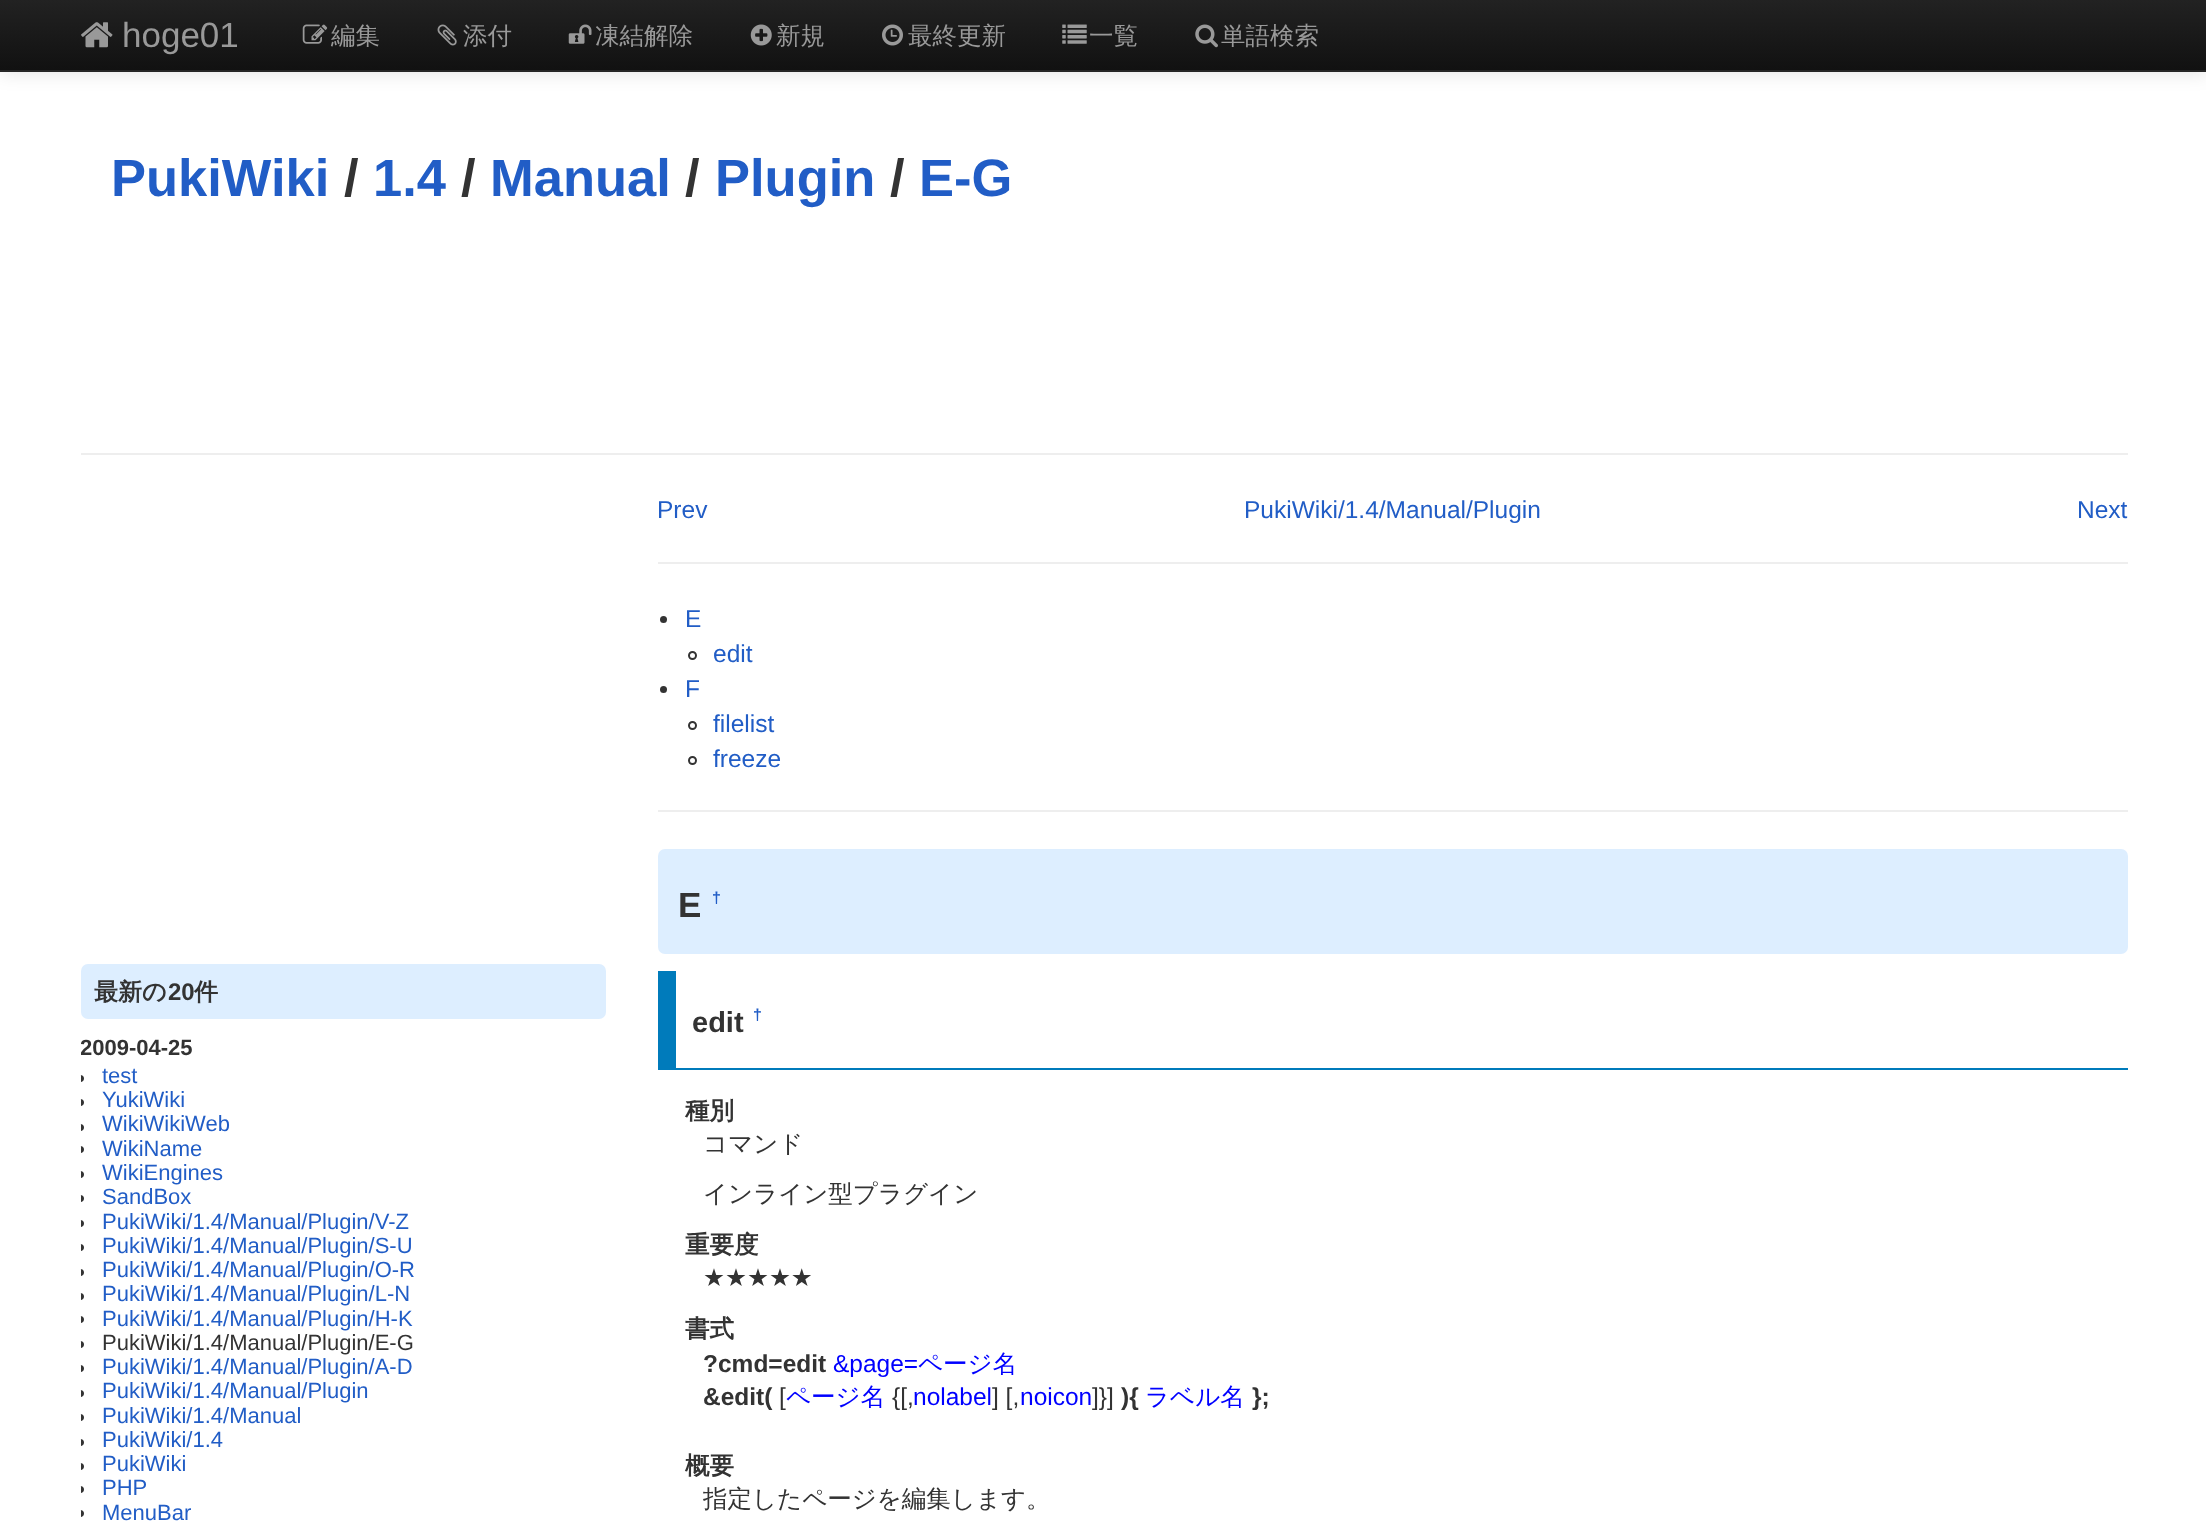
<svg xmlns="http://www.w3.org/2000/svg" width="2206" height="1533">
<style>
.a{font:35px Liberation Sans;fill:#999}
.b{font:500 24.5px WenQuanYi Zen Hei;fill:#999}
.c{font:bold 52.5px Liberation Sans;fill:#215dc6}
.d{font:bold 52.5px Liberation Sans;fill:#333}
.e{font:bold 24px WenQuanYi Zen Hei;fill:#333}
.f{font:bold 24px Liberation Sans;fill:#333}
.g{font:bold 22px Liberation Sans;fill:#333}
.h{font:22px Liberation Sans;fill:#215dc6}
.i{font:22px Liberation Sans;fill:#333}
.j{font:24.5px Liberation Sans;fill:#215dc6}
.k{font:bold 35px Liberation Sans;fill:#333}
.l{font:bold 16px Liberation Sans;fill:#215dc6}
.m{font:bold 29px Liberation Sans;fill:#333}
.n{font:bold 24.5px WenQuanYi Zen Hei;fill:#333}
.o{font:500 24.5px WenQuanYi Zen Hei;fill:#333}
.p{font:24.5px DejaVu Sans;fill:#333}
.q{font:bold 24.5px Liberation Sans;fill:#333}
.r{font:24.5px Liberation Sans;fill:#00f}
.s{font:500 24.5px WenQuanYi Zen Hei;fill:#00f}
.t{font:24.5px Liberation Sans;fill:#333}
</style>
<defs>
<linearGradient id="g1" gradientUnits="userSpaceOnUse" x1="1103" y1="0" x2="1103" y2="70"><stop offset="0" stop-color="#222"/><stop offset="1" stop-color="#111"/></linearGradient>
<clipPath id="clip1"><path d="M81 492h525v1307H81z"/></clipPath>
</defs>
<rect width="100%" height="100%" fill="#fff"/>
<path fill="#0000001a" filter="blur(9px)" d="M0 2h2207v72H0z"/>
<path fill="url(#g1)" d="M0 0h2206v70H0z"/>
<path fill="#252525" d="M0 70h2206v2H0z"/>
<image href="1.png" x="81" y="22" width="32" height="26"/>
<image href="2.png" x="302" y="24" width="26" height="20"/>
<image href="3.png" x="437" y="24" width="20" height="22"/>
<image href="4.png" x="568" y="24" width="24" height="20"/>
<image href="5.png" x="750" y="24" width="22" height="22"/>
<image href="6.png" x="882" y="24" width="21" height="22"/>
<image href="7.png" x="1062" y="24" width="25" height="20"/>
<image href="8.png" x="1195" y="24" width="23" height="24"/>
<path fill="#eee" d="M81 453h2047v2H81z"/>
<rect fill="#def" x="81" y="964" width="525" height="55" rx="7"/>
<path fill="#333" d="M81 1075h-.5c2 0 3.5 1.5 3.5 3.5c0 2-1.5 3.5-3.5 3.5h.5z"/>
<path fill="#333" d="M81 1099h-.5c2 0 3.5 1.5 3.5 3.5c0 2-1.5 3.5-3.5 3.5h.5z"/>
<path fill="#333" d="M81 1124h-.5c2 0 3.5 1.5 3.5 3.5c0 2-1.5 3.5-3.5 3.5h.5z"/>
<path fill="#333" d="M81 1146h-.5c2 0 3.5 1.5 3.5 3.5c0 2-1.5 3.5-3.5 3.5h.5z"/>
<path fill="#333" d="M81 1171h-.5c2 0 3.5 1.5 3.5 3.5c0 2-1.5 3.5-3.5 3.5h.5z"/>
<path fill="#333" d="M81 1195h-.5c2 0 3.5 1.5 3.5 3.5c0 2-1.5 3.5-3.5 3.5h.5z"/>
<path fill="#333" d="M81 1220h-.5c2 0 3.5 1.5 3.5 3.5c0 2-1.5 3.5-3.5 3.5h.5z"/>
<path fill="#333" d="M81 1244h-.5c2 0 3.5 1.5 3.5 3.5c0 2-1.5 3.5-3.5 3.5h.5z"/>
<path fill="#333" d="M81 1269h-.5c2 0 3.5 1.5 3.5 3.5c0 2-1.5 3.5-3.5 3.5h.5z"/>
<path fill="#333" d="M81 1293h-.5c2 0 3.5 1.5 3.5 3.5c0 2-1.5 3.5-3.5 3.5h.5z"/>
<path fill="#333" d="M81 1316h-.5c2 0 3.5 1.5 3.5 3.5c0 2-1.5 3.5-3.5 3.5h.5z"/>
<path fill="#333" d="M81 1341h-.5c2 0 3.5 1.5 3.5 3.5c0 2-1.5 3.5-3.5 3.5h.5z"/>
<path fill="#333" d="M81 1365h-.5c2 0 3.5 1.5 3.5 3.5c0 2-1.5 3.5-3.5 3.5h.5z"/>
<path fill="#333" d="M81 1390h-.5c2 0 3.5 1.5 3.5 3.5c0 2-1.5 3.5-3.5 3.5h.5z"/>
<path fill="#333" d="M81 1414h-.5c2 0 3.5 1.5 3.5 3.5c0 2-1.5 3.5-3.5 3.5h.5z"/>
<path fill="#333" d="M81 1439h-.5c2 0 3.5 1.5 3.5 3.5c0 2-1.5 3.5-3.5 3.5h.5z"/>
<path fill="#333" d="M81 1463h-.5c2 0 3.5 1.5 3.5 3.5c0 2-1.5 3.5-3.5 3.5h.5z"/>
<path fill="#333" d="M81 1486h-.5c2 0 3.5 1.5 3.5 3.5c0 2-1.5 3.5-3.5 3.5h.5z"/>
<path fill="#333" d="M81 1510h-.5c2 0 3.5 1.5 3.5 3.5c0 2-1.5 3.5-3.5 3.5h.5z"/>
<path fill="#eee" d="M658 562h1470v2H658z"/>
<circle fill="#333" cx="663.5" cy="619.5" r="3.5"/>
<circle fill="none" stroke="#333" stroke-width="2" cx="692.5" cy="655.5" r="3.5"/>
<circle fill="#333" cx="663.5" cy="689.5" r="3.5"/>
<circle fill="none" stroke="#333" stroke-width="2" cx="692.5" cy="725.5" r="3.5"/>
<circle fill="none" stroke="#333" stroke-width="2" cx="692.5" cy="760.5" r="3.5"/>
<path fill="#eee" d="M658 810h1470v2H658z"/>
<rect fill="#def" x="658" y="849" width="1470" height="105" rx="7"/>
<path fill="#007bbb" d="M658 1068h1470v2H658z"/>
<path fill="#007bbb" d="M658 971h18v97H658z"/>
<text class="a" x="122" y="47">hoge01</text>
<text class="b" x="331" y="44">編集</text>
<text class="b" x="463" y="44">添付</text>
<text class="b" x="595" y="44">凍結解除</text>
<text class="b" x="776" y="44">新規</text>
<text class="b" x="908" y="44">最終更新</text>
<text class="b" x="1089" y="44">一覧</text>
<text class="b" x="1221" y="44">単語検索</text>
<text class="c" x="111" y="196">PukiWiki</text>
<text class="d" x="344" y="196">/</text>
<text class="c" x="373" y="196">1.4</text>
<text class="d" x="461" y="196">/</text>
<text class="c" x="490" y="196">Manual</text>
<text class="d" x="685" y="196">/</text>
<text class="c" x="715" y="196">Plugin</text>
<text class="d" x="890" y="196">/</text>
<text class="c" x="919" y="196">E-G</text>
<text class="e" x="94" y="1000">最新の</text>
<text class="f" x="168" y="1000">20</text>
<text class="e" x="194" y="1000">件</text>
<g clip-path="url(#clip1)">
<text class="g" x="80" y="1055">2009-04-25</text>
</g>
<text class="h" x="102" y="1083">test</text>
<text class="h" x="102" y="1107">YukiWiki</text>
<text class="h" x="102" y="1131">WikiWikiWeb</text>
<text class="h" x="102" y="1156">WikiName</text>
<text class="h" x="102" y="1180">WikiEngines</text>
<text class="h" x="102" y="1204">SandBox</text>
<text class="h" x="102" y="1229">PukiWiki/1.4/Manual/Plugin/V-Z</text>
<text class="h" x="102" y="1253">PukiWiki/1.4/Manual/Plugin/S-U</text>
<text class="h" x="102" y="1277">PukiWiki/1.4/Manual/Plugin/O-R</text>
<text class="h" x="102" y="1301">PukiWiki/1.4/Manual/Plugin/L-N</text>
<text class="h" x="102" y="1326">PukiWiki/1.4/Manual/Plugin/H-K</text>
<text class="i" x="102" y="1350">PukiWiki/1.4/Manual/Plugin/E-G</text>
<text class="h" x="102" y="1374">PukiWiki/1.4/Manual/Plugin/A-D</text>
<text class="h" x="102" y="1398">PukiWiki/1.4/Manual/Plugin</text>
<text class="h" x="102" y="1423">PukiWiki/1.4/Manual</text>
<text class="h" x="102" y="1447">PukiWiki/1.4</text>
<text class="h" x="102" y="1471">PukiWiki</text>
<text class="h" x="102" y="1495">PHP</text>
<text class="h" x="102" y="1520">MenuBar</text>
<text class="j" x="657" y="518">Prev</text>
<text class="j" x="1244" y="518">PukiWiki/1.4/Manual/Plugin</text>
<text class="j" x="2077" y="518">Next</text>
<text class="j" x="685" y="627">E</text>
<text class="j" x="713" y="662">edit</text>
<text class="j" x="685" y="697">F</text>
<text class="j" x="713" y="732">filelist</text>
<text class="j" x="713" y="767">freeze</text>
<text class="k" x="678" y="917">E</text>
<text class="l" x="712" y="903">†</text>
<text class="m" x="692" y="1032">edit</text>
<text class="l" x="753" y="1020">†</text>
<text class="n" x="685" y="1119">種別</text>
<text class="o" x="703" y="1152">コマンド</text>
<text class="o" x="703" y="1202">インライン型プラグイン</text>
<text class="n" x="685" y="1253">重要度</text>
<text class="p" x="703" y="1286">★★★★★</text>
<text class="n" x="685" y="1337">書式</text>
<text class="q" x="703" y="1372">?cmd=edit</text>
<text class="r" x="833" y="1372">&amp;page=</text>
<text class="s" x="918" y="1372">ページ名</text>
<text class="q" x="703" y="1405">&amp;edit(</text>
<text class="t" x="779" y="1405">[</text>
<text class="s" x="786" y="1405">ページ名</text>
<text class="t" x="892" y="1405">{[,</text>
<text class="r" x="913" y="1405">nolabel</text>
<text class="t" x="992" y="1405">] [,</text>
<text class="r" x="1020" y="1405">noicon</text>
<text class="t" x="1092" y="1405">]}]</text>
<text class="q" x="1121" y="1405">){</text>
<text class="s" x="1145" y="1405">ラベル名</text>
<text class="q" x="1252" y="1405">};</text>
<text class="n" x="685" y="1474">概要</text>
<text class="o" x="703" y="1507">指定したページを編集します。</text>
</svg>
